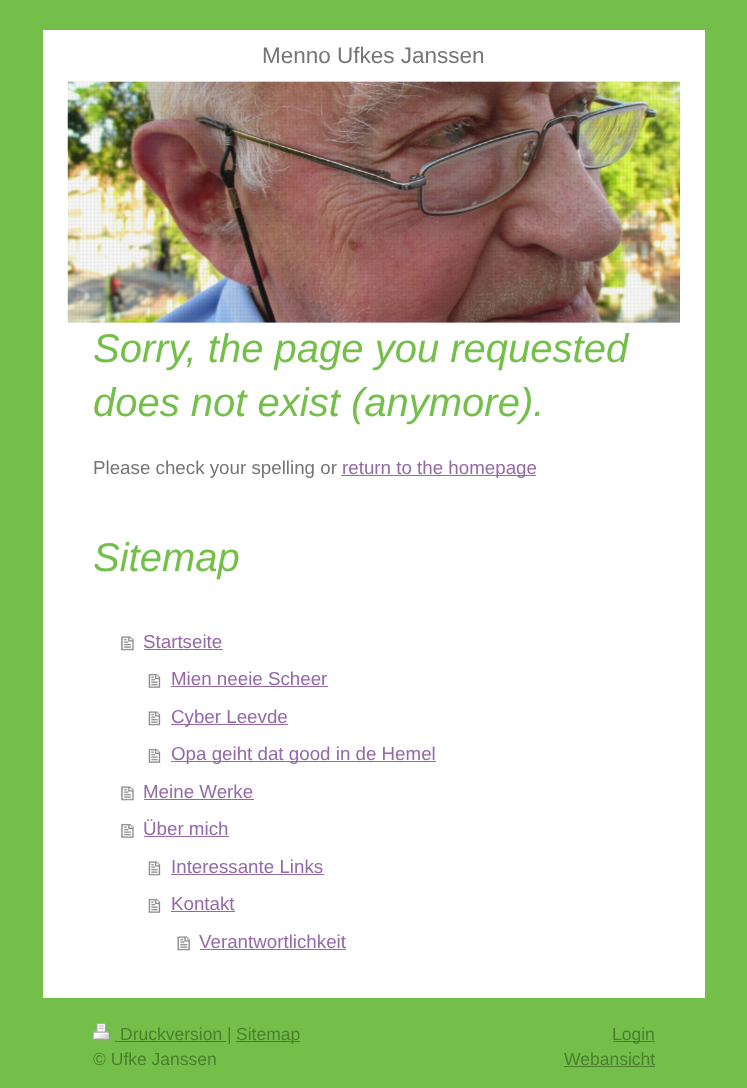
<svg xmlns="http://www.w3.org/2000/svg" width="747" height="1088">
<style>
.a{font:22.5px Liberation Sans;fill:#757575}
.b{font:italic 40px Liberation Sans;fill:#73bf4a}
.c{font:18.75px Liberation Sans;fill:#757575}
.d{font:18.75px Liberation Sans;fill:#9568a7}
.e{font:17.5px Liberation Sans;fill:#4a7f2e}
</style>
<rect width="100%" height="100%" fill="#73bf4a"/>
<path fill="#fff" d="M43 30h662v968H43z"/>
<path fill="#eee" d="M68 81h612v242H68z"/>
<image href="1.png" x="67" y="81" width="613" height="242"/>
<image href="2.png" x="68" y="82" width="612" height="241"/>
<path fill="#9568a7" d="M341 475h195v1H341z"/>
<image href="3.png" x="121" y="636" width="13" height="15"/>
<path fill="#9568a7" d="M144 649h79v1H144z"/>
<image href="4.png" x="148" y="673" width="13" height="15"/>
<path fill="#9568a7" d="M171 686h157v1H171z"/>
<image href="5.png" x="148" y="711" width="13" height="15"/>
<path fill="#9568a7" d="M171 724h117v1H171z"/>
<image href="4.png" x="148" y="748" width="13" height="15"/>
<path fill="#9568a7" d="M171 761h265v1H171z"/>
<image href="3.png" x="121" y="786" width="13" height="15"/>
<path fill="#9568a7" d="M144 799h110v1H144z"/>
<image href="6.png" x="121" y="823" width="13" height="15"/>
<path fill="#9568a7" d="M144 836h85v1H144z"/>
<image href="5.png" x="148" y="861" width="13" height="15"/>
<path fill="#9568a7" d="M171 874h153v1H171z"/>
<image href="4.png" x="148" y="898" width="13" height="15"/>
<path fill="#9568a7" d="M171 911h64v1H171z"/>
<image href="7.png" x="177" y="936" width="14" height="15"/>
<path fill="#9568a7" d="M200 949h146v1H200z"/>
<image href="8.png" x="92" y="1022" width="19" height="19"/>
<path fill="#4a7f2e" d="M115 1041h111v1H115z"/>
<path fill="#4a7f2e" d="M236 1041h64v1H236z"/>
<path fill="#4a7f2e" d="M613 1041h42v1H613z"/>
<path fill="#4a7f2e" d="M564 1066h91v1H564z"/>
<text class="a" x="262" y="63">Menno Ufkes Janssen</text>
<text class="b" x="93" y="362">Sorry, the page you requested</text>
<text class="b" x="93" y="416">does not exist (anymore).</text>
<text class="c" x="93" y="474">Please check your spelling or</text>
<text class="d" x="342" y="474">return to the homepage</text>
<text class="b" x="93" y="571">Sitemap</text>
<text class="d" x="143" y="648">Startseite</text>
<text class="d" x="171" y="685">Mien neeie Scheer</text>
<text class="d" x="171" y="723">Cyber Leevde</text>
<text class="d" x="171" y="760">Opa geiht dat good in de Hemel</text>
<text class="d" x="143" y="798">Meine Werke</text>
<text class="d" x="143" y="835">Über mich</text>
<text class="d" x="171" y="873">Interessante Links</text>
<text class="d" x="171" y="910">Kontakt</text>
<text class="d" x="199" y="948">Verantwortlichkeit</text>
<text class="e" x="120" y="1040">Druckversion |</text>
<text class="e" x="236" y="1040">Sitemap</text>
<text class="e" x="93" y="1065">© Ufke Janssen</text>
<text class="e" x="612" y="1040">Login</text>
<text class="e" x="564" y="1065">Webansicht</text>
</svg>
